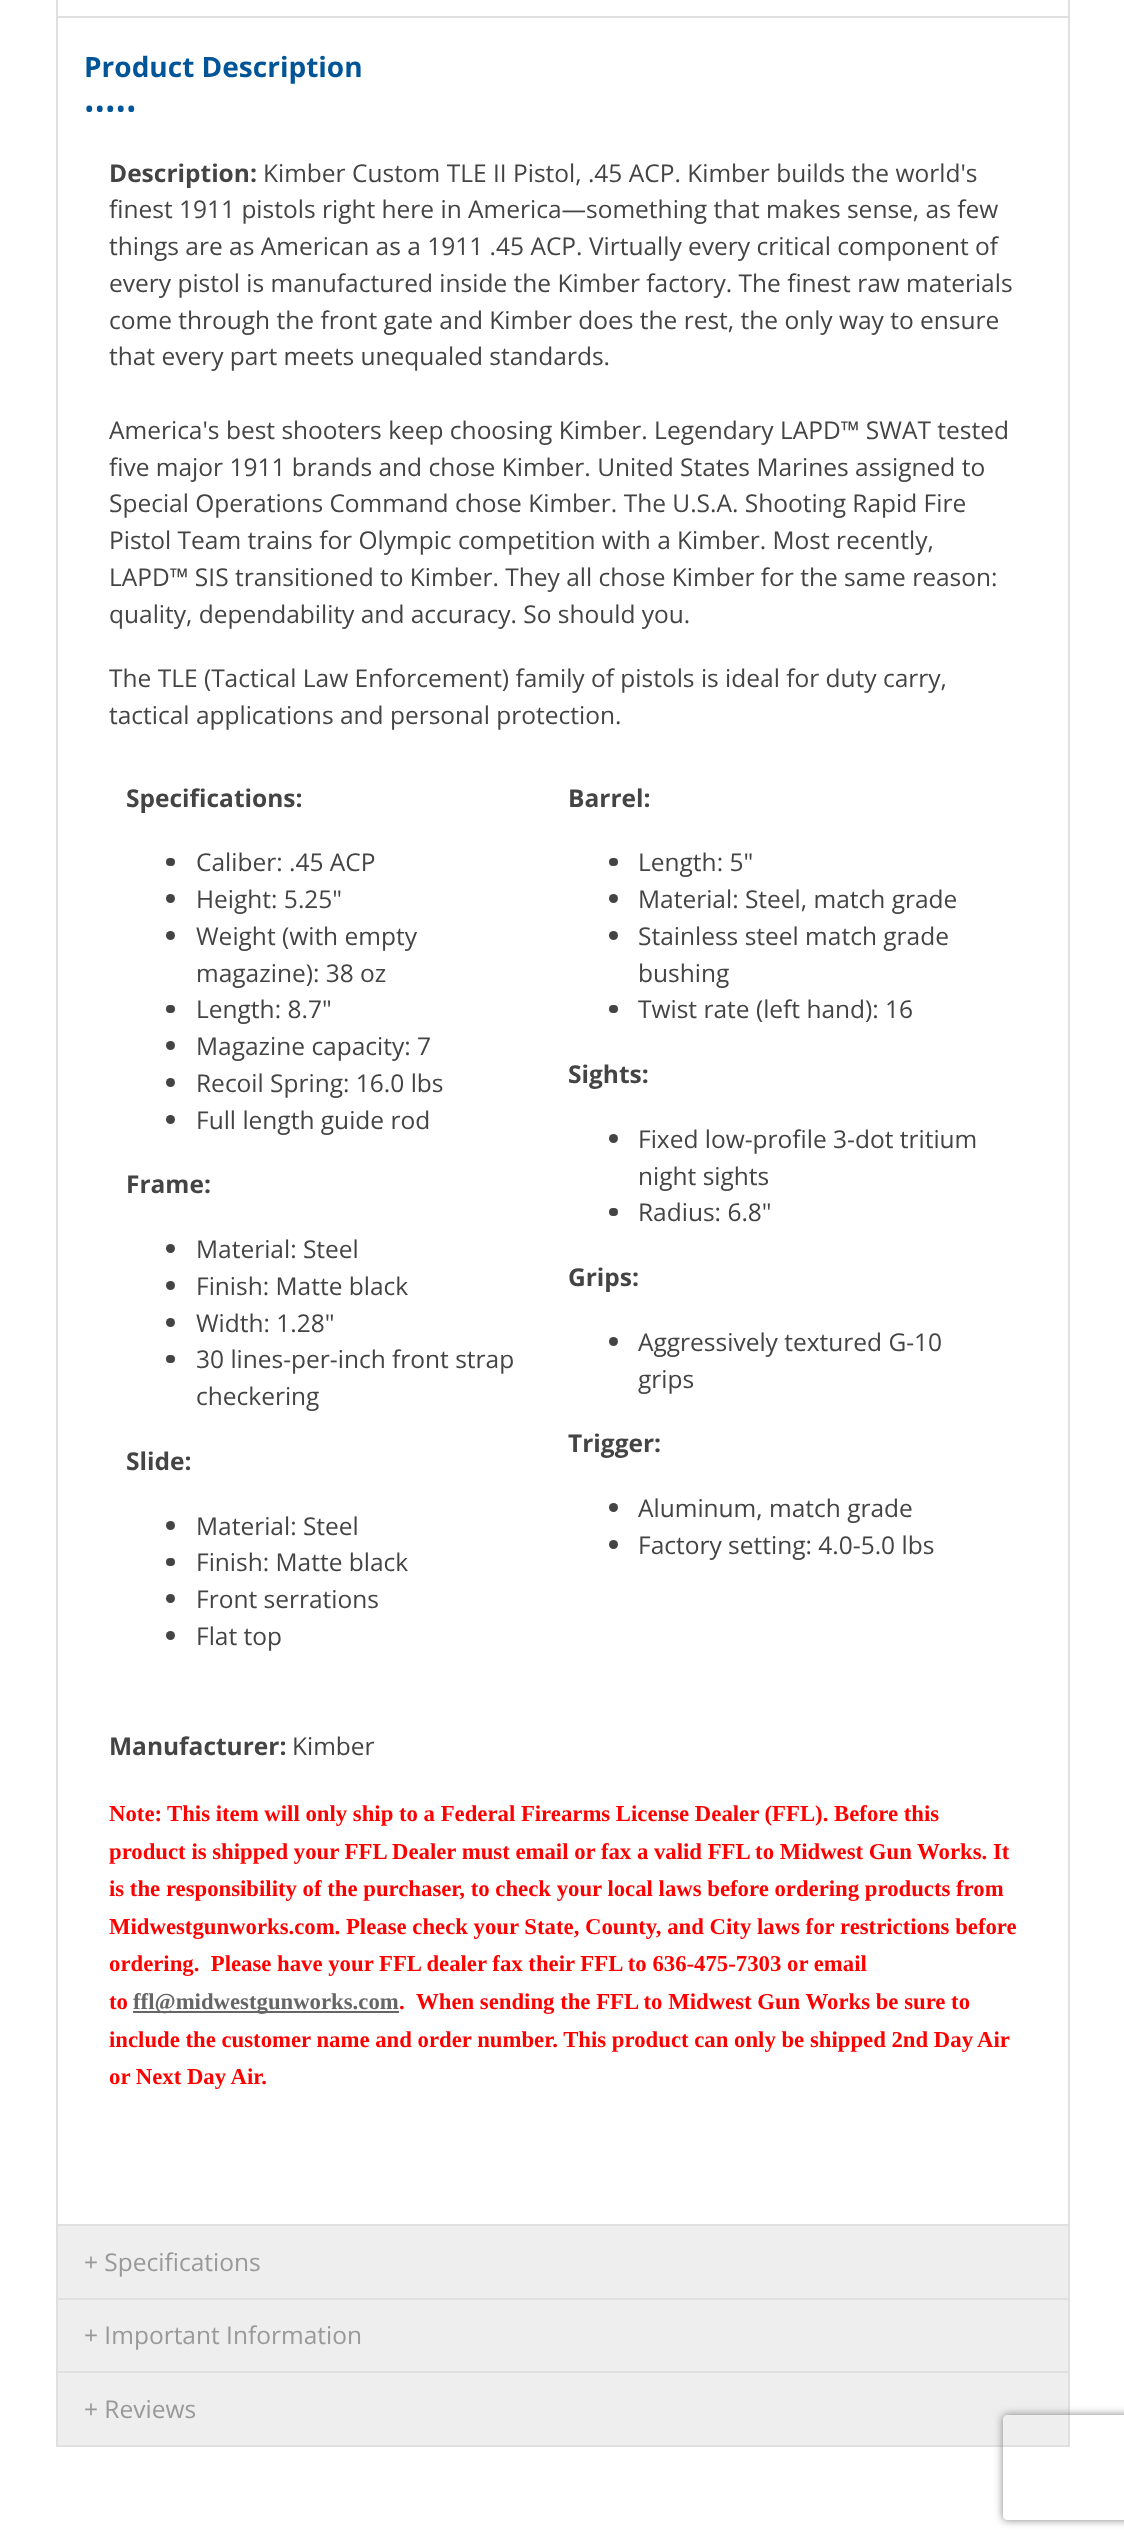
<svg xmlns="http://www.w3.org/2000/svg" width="1124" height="2543">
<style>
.a{font:bold 28px Open Sans;fill:#005598}
.b{font:28px Open Sans;fill:#005598}
.c{font:bold 24.5px Open Sans;fill:#444}
.d{font:24.5px Open Sans;fill:#444}
.e{font:bold 22.75px Liberation Serif;fill:#f00}
.f{font:bold 22.75px Liberation Serif;fill:#666}
.g{font:24.5px Open Sans;fill:#999}
</style>
<defs>
<clipPath id="clip1"><path d="M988 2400h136v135h-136zm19 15h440c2 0 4 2 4 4v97c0 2-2 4-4 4h-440c-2 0-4-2-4-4v-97c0-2 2-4 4-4z" clip-rule="evenodd"/></clipPath>
</defs>
<rect width="100%" height="100%" fill="#fff"/>
<path fill="#dfe1e1" d="M1068 0h2v2447H1068z"/>
<path fill="#dfe1e1" d="M56 16h1013v2H56z"/>
<path fill="#dfe1e1" d="M56 0h2v18H56z"/>
<path fill="#dfe1e1" d="M56 2224h1013v2H56z"/>
<path fill="#dfe1e1" d="M56 18h2v2208H56z"/>
<rect fill="#444" x="166" y="858" width="9" height="8" rx="4"/>
<circle fill="#444" cx="170.5" cy="898.5" r="4.5"/>
<circle fill="#444" cx="170.5" cy="935.5" r="4.5"/>
<rect fill="#444" x="166" y="1005" width="9" height="8" rx="4"/>
<circle fill="#444" cx="170.5" cy="1045.5" r="4.5"/>
<circle fill="#444" cx="170.5" cy="1082.5" r="4.5"/>
<circle fill="#444" cx="170.5" cy="1119.5" r="4.5"/>
<circle fill="#444" cx="170.5" cy="1248.5" r="4.5"/>
<circle fill="#444" cx="170.5" cy="1285.5" r="4.5"/>
<circle fill="#444" cx="170.5" cy="1322.5" r="4.5"/>
<rect fill="#444" x="166" y="1355" width="9" height="8" rx="4"/>
<circle fill="#444" cx="170.5" cy="1525.5" r="4.5"/>
<rect fill="#444" x="166" y="1558" width="9" height="8" rx="4"/>
<circle fill="#444" cx="170.5" cy="1598.5" r="4.5"/>
<circle fill="#444" cx="170.5" cy="1635.5" r="4.5"/>
<rect fill="#444" x="609" y="858" width="9" height="8" rx="4"/>
<circle fill="#444" cx="613.5" cy="898.5" r="4.5"/>
<circle fill="#444" cx="613.5" cy="935.5" r="4.5"/>
<rect fill="#444" x="609" y="1005" width="9" height="8" rx="4"/>
<circle fill="#444" cx="613.5" cy="1138.5" r="4.5"/>
<rect fill="#444" x="609" y="1208" width="9" height="8" rx="4"/>
<circle fill="#444" cx="613.5" cy="1341.5" r="4.5"/>
<circle fill="#444" cx="613.5" cy="1507.5" r="4.5"/>
<circle fill="#444" cx="613.5" cy="1544.5" r="4.5"/>
<path fill="#666" d="M133 2011h266v2H133z"/>
<path fill="#eee" d="M58 2226h1010v72H58z"/>
<path fill="#dfe1e1" d="M56 2298h1013v2H56z"/>
<path fill="#dfe1e1" d="M56 2226h2v74H56z"/>
<path fill="#eee" d="M58 2300h1010v71H58z"/>
<path fill="#dfe1e1" d="M56 2371h1013v2H56z"/>
<path fill="#dfe1e1" d="M56 2300h2v73H56z"/>
<path fill="#eee" d="M58 2373h1010v72H58z"/>
<path fill="#dfe1e1" d="M56 2445h1013v2H56z"/>
<path fill="#dfe1e1" d="M56 2373h2v74H56z"/>
<g clip-path="url(#clip1)">
<rect fill="#808080" filter="blur(4.5px)" x="1003" y="2415" width="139" height="105" rx="4"/>
</g>
<text class="a" x="84" y="77">Product Description</text>
<text class="b" x="84" y="119">•••••</text>
<text class="c" x="109" y="182">Description:</text>
<text class="d" x="263" y="182">Kimber Custom TLE II Pistol, .45 ACP. Kimber builds the world's</text>
<text class="d" x="109" y="218">finest 1911 pistols right here in America—something that makes sense, as few</text>
<text class="d" x="109" y="255">things are as American as a 1911 .45 ACP. Virtually every critical component of</text>
<text class="d" x="109" y="292">every pistol is manufactured inside the Kimber factory. The finest raw materials</text>
<text class="d" x="109" y="329">come through the front gate and Kimber does the rest, the only way to ensure</text>
<text class="d" x="109" y="365">that every part meets unequaled standards.</text>
<text class="d" x="109" y="439">America's best shooters keep choosing Kimber. Legendary LAPD™ SWAT tested</text>
<text class="d" x="109" y="476">five major 1911 brands and chose Kimber. United States Marines assigned to</text>
<text class="d" x="109" y="512">Special Operations Command chose Kimber. The U.S.A. Shooting Rapid Fire</text>
<text class="d" x="109" y="549">Pistol Team trains for Olympic competition with a Kimber. Most recently,</text>
<text class="d" x="109" y="586">LAPD™ SIS transitioned to Kimber. They all chose Kimber for the same reason:</text>
<text class="d" x="109" y="623">quality, dependability and accuracy. So should you.</text>
<text class="d" x="109" y="687">The TLE (Tactical Law Enforcement) family of pistols is ideal for duty carry,</text>
<text class="d" x="109" y="724">tactical applications and personal protection.</text>
<text class="c" x="126" y="807">Specifications:</text>
<text class="d" x="196" y="871">Caliber: .45 ACP</text>
<text class="d" x="196" y="908">Height: 5.25"</text>
<text class="d" x="196" y="945">Weight (with empty</text>
<text class="d" x="196" y="982">magazine): 38 oz</text>
<text class="d" x="196" y="1018">Length: 8.7"</text>
<text class="d" x="196" y="1055">Magazine capacity: 7</text>
<text class="d" x="196" y="1092">Recoil Spring: 16.0 lbs</text>
<text class="d" x="196" y="1129">Full length guide rod</text>
<text class="c" x="126" y="1193">Frame:</text>
<text class="d" x="196" y="1258">Material: Steel</text>
<text class="d" x="196" y="1295">Finish: Matte black</text>
<text class="d" x="196" y="1332">Width: 1.28"</text>
<text class="d" x="196" y="1368">30 lines-per-inch front strap</text>
<text class="d" x="196" y="1405">checkering</text>
<text class="c" x="126" y="1470">Slide:</text>
<text class="d" x="196" y="1535">Material: Steel</text>
<text class="d" x="196" y="1571">Finish: Matte black</text>
<text class="d" x="196" y="1608">Front serrations</text>
<text class="d" x="196" y="1645">Flat top</text>
<text class="c" x="568" y="807">Barrel:</text>
<text class="d" x="638" y="871">Length: 5"</text>
<text class="d" x="638" y="908">Material: Steel, match grade</text>
<text class="d" x="638" y="945">Stainless steel match grade</text>
<text class="d" x="638" y="982">bushing</text>
<text class="d" x="638" y="1018">Twist rate (left hand): 16</text>
<text class="c" x="568" y="1083">Sights:</text>
<text class="d" x="638" y="1148">Fixed low-profile 3-dot tritium</text>
<text class="d" x="638" y="1185">night sights</text>
<text class="d" x="638" y="1221">Radius: 6.8"</text>
<text class="c" x="568" y="1286">Grips:</text>
<text class="d" x="638" y="1351">Aggressively textured G-10</text>
<text class="d" x="638" y="1388">grips</text>
<text class="c" x="568" y="1452">Trigger:</text>
<text class="d" x="638" y="1517">Aluminum, match grade</text>
<text class="d" x="638" y="1554">Factory setting: 4.0-5.0 lbs</text>
<text class="c" x="109" y="1755">Manufacturer:</text>
<text class="d" x="292" y="1755">Kimber</text>
<text class="e" x="109" y="1821">Note:</text>
<text class="e" x="167" y="1821">This item will only ship to a Federal Firearms License Dealer (FFL). Before this</text>
<text class="e" x="109" y="1859">product is shipped your FFL Dealer must email or fax a valid FFL to Midwest Gun Works. It</text>
<text class="e" x="109" y="1896">is the responsibility of the purchaser, to check your local laws before ordering products from</text>
<text class="e" x="109" y="1934">Midwestgunworks.com. Please check your State, County, and City laws for restrictions before</text>
<text class="e" xml:space="preserve" x="109" y="1971">ordering.  Please have your FFL dealer fax their FFL to 636-475-7303 or email</text>
<text class="e" x="109" y="2009">to</text>
<text class="f" x="133" y="2009">ffl@midwestgunworks.com</text>
<text class="e" x="399" y="2009">.</text>
<text class="e" x="416" y="2009">When sending the FFL to Midwest Gun Works be sure to</text>
<text class="e" x="109" y="2047">include the customer name and order number. This product can only be shipped 2nd Day</text>
<text class="e" x="977" y="2047">Air</text>
<text class="e" x="109" y="2084">or Next Day Air.</text>
<text class="g" x="84" y="2271">+ Specifications</text>
<text class="g" x="84" y="2344">+ Important Information</text>
<text class="g" x="84" y="2418">+ Reviews</text>
</svg>
